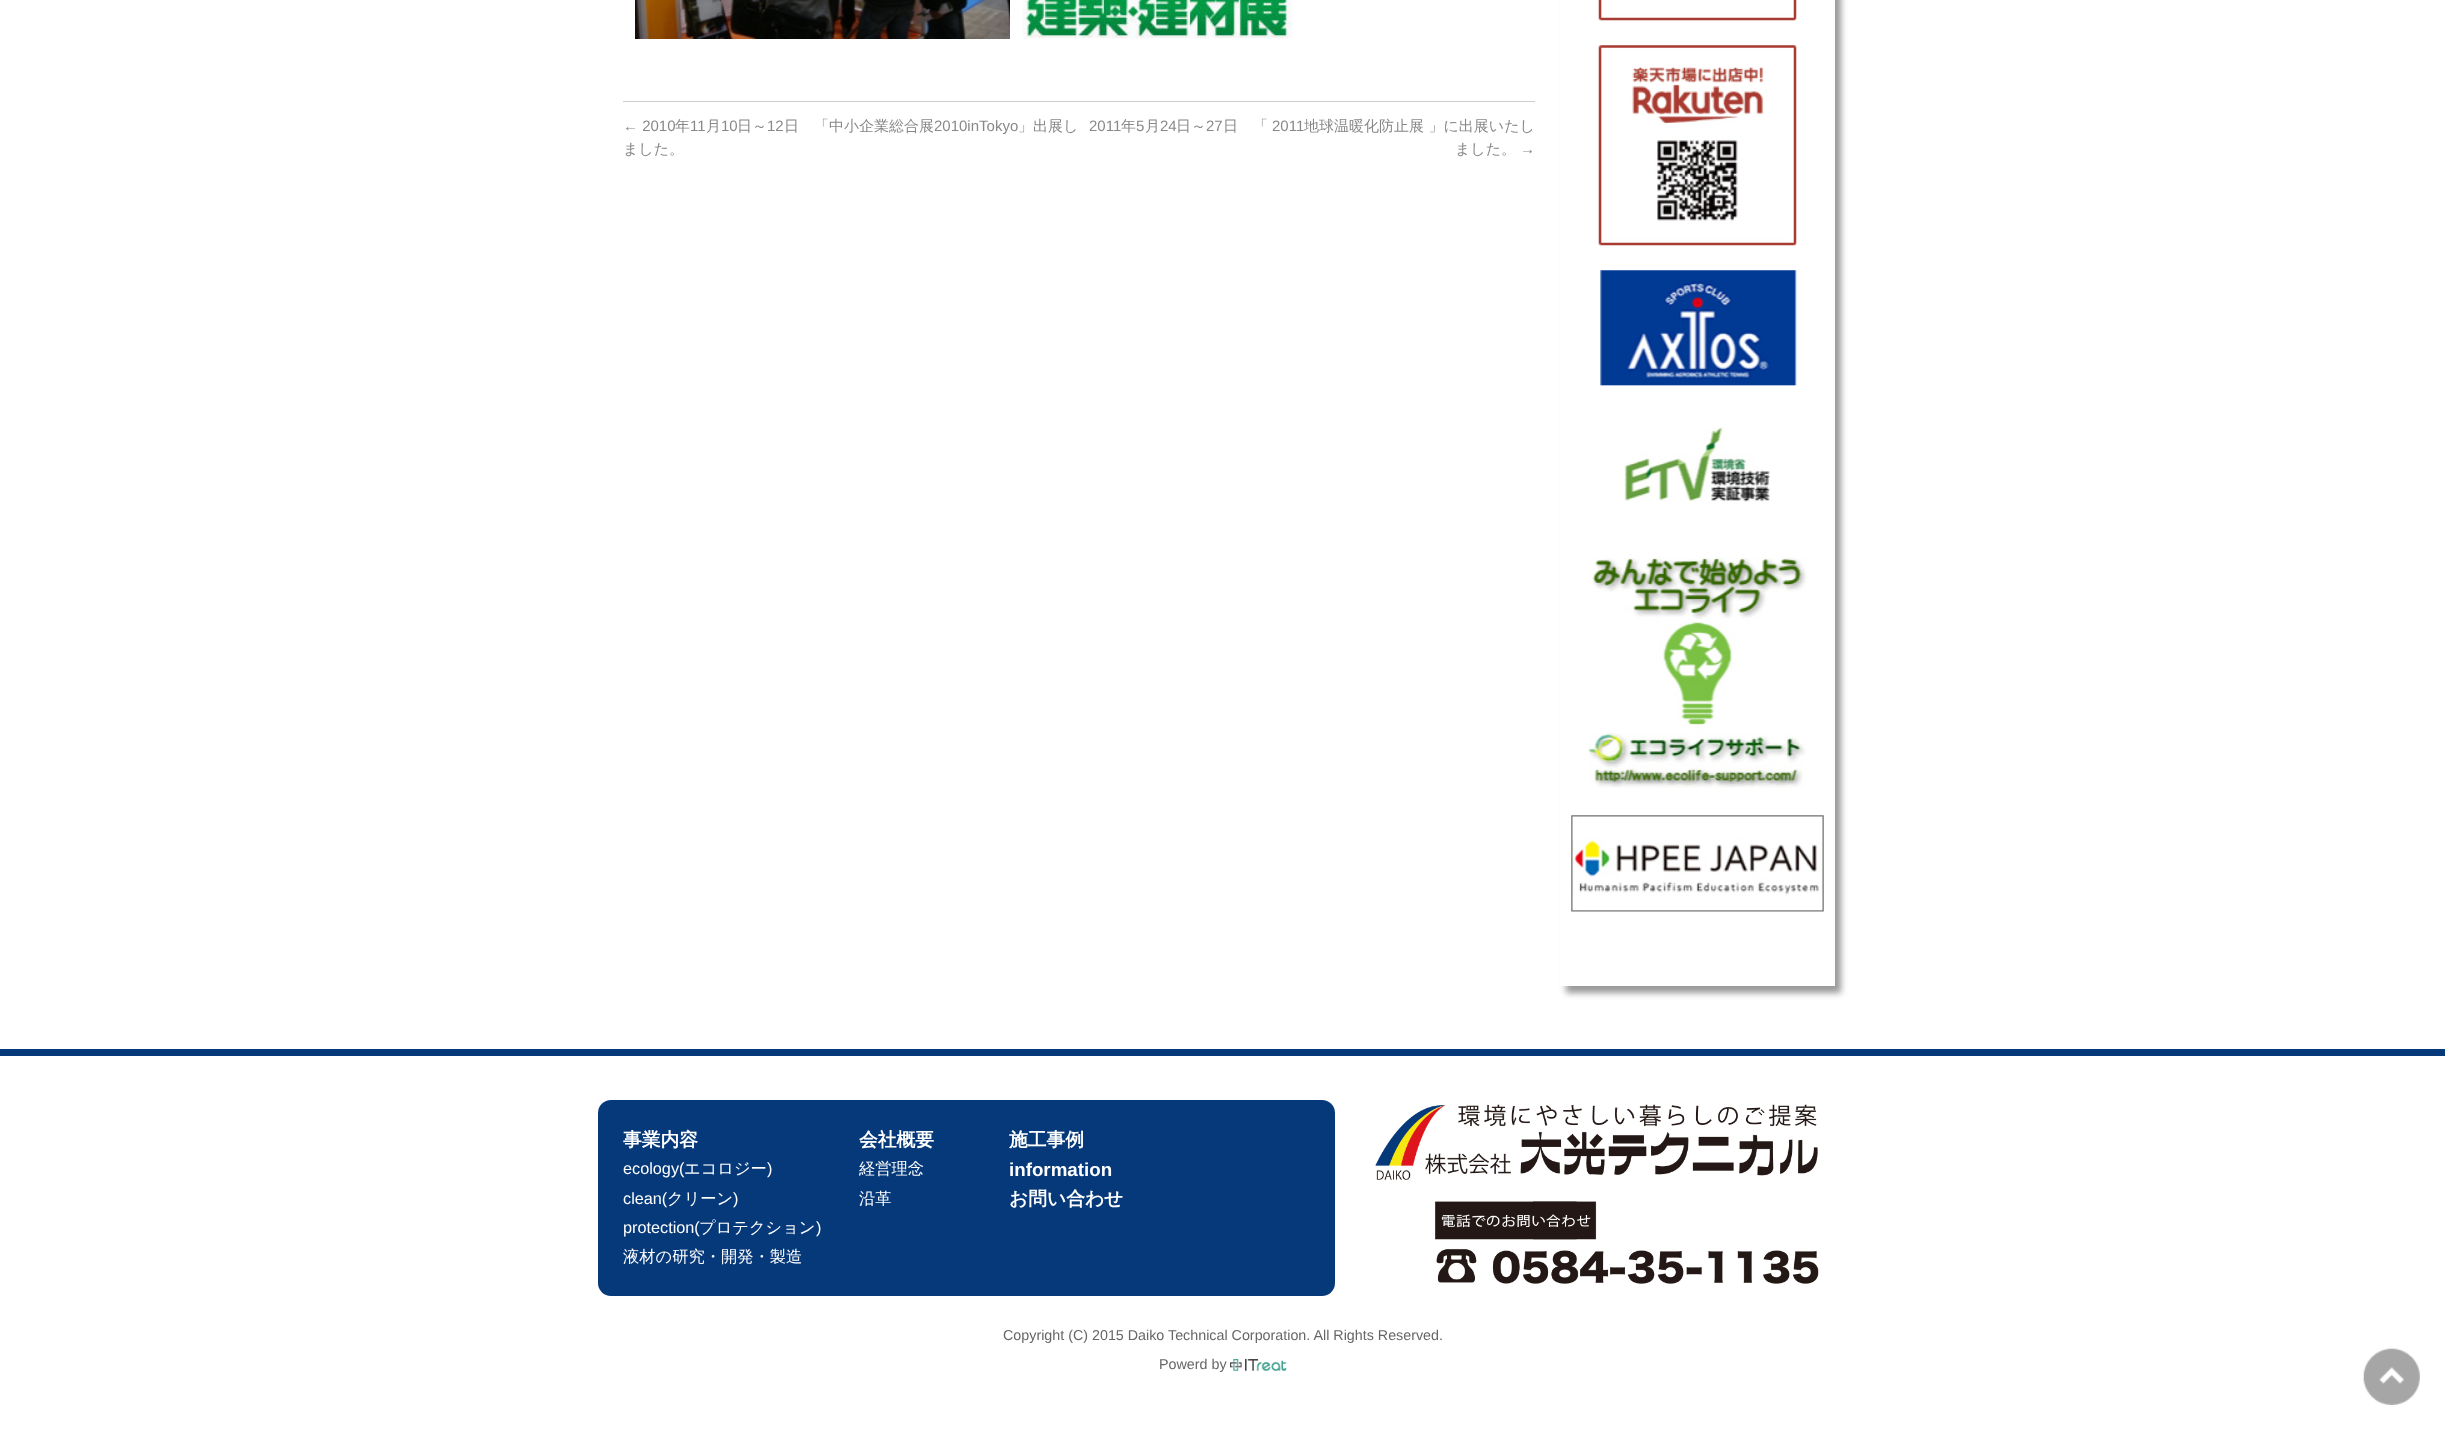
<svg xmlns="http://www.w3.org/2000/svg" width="2445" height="1430">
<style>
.a{font:15px Liberation Sans;fill:#888}
.b{font:500 15px WenQuanYi Zen Hei;fill:#888}
.c{font:bold 18.75px WenQuanYi Zen Hei;fill:#fff}
.d{font:16.25px Liberation Sans;fill:#fff}
.e{font:500 16.25px WenQuanYi Zen Hei;fill:#fff}
.f{font:bold 18.75px Liberation Sans;fill:#fff}
.g{font:14.3px Liberation Sans;fill:#666}
</style>
<defs>
<clipPath id="clip1"><path d="M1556 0h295v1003h-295zm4-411h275v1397h-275z" clip-rule="evenodd"/></clipPath>
</defs>
<rect width="100%" height="100%" fill="#fff"/>
<image href="1.png" x="635" y="0" width="375" height="39"/>
<image href="2.png" x="1022" y="0" width="271" height="39"/>
<path fill="#ccc" d="M623 101h912v1H623z"/>
<g clip-path="url(#clip1)">
<path fill="#00000066" filter="blur(3px)" d="M1566 -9h275v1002H1566z"/>
</g>
<image href="3.png" x="1598" y="0" width="199" height="21"/>
<image href="4.png" x="1598" y="45" width="199" height="201"/>
<image href="5.png" x="1600" y="270" width="197" height="116"/>
<image href="6.png" x="1624" y="427" width="147" height="75"/>
<image href="7.png" x="1588" y="557" width="219" height="231"/>
<image href="8.png" x="1571" y="815" width="253" height="97"/>
<path fill="#06397a" d="M0 1049h2445v7H0z"/>
<rect fill="#06397a" x="598" y="1100" width="737" height="196" rx="13"/>
<image href="9.png" x="1375" y="1104" width="443" height="76"/>
<image href="10.png" x="1435" y="1201" width="384" height="83"/>
<image href="11.png" x="1230" y="1359" width="57" height="13"/>
<image href="12.png" x="2363" y="1348" width="57" height="57"/>
<text class="a" x="623" y="131">← 2010</text>
<text class="b" x="675" y="131">年</text>
<text class="a" x="690" y="131">11</text>
<text class="b" x="706" y="131">月</text>
<text class="a" x="721" y="131">10</text>
<text class="b" x="737" y="131">日～</text>
<text class="a" x="767" y="131">12</text>
<text class="b" x="784" y="131">日　「中小企業総合展</text>
<text class="a" x="934" y="131">2010inTokyo</text>
<text class="b" x="1018" y="131">」出展し</text>
<text class="b" x="623" y="154">ました。</text>
<text class="a" x="1089" y="131">2011</text>
<text class="b" x="1121" y="131">年</text>
<text class="a" x="1136" y="131">5</text>
<text class="b" x="1145" y="131">月</text>
<text class="a" x="1160" y="131">24</text>
<text class="b" x="1176" y="131">日～</text>
<text class="a" x="1206" y="131">27</text>
<text class="b" x="1223" y="131">日　「</text>
<text class="a" x="1272" y="131">2011</text>
<text class="b" x="1304" y="131">地球温暖化防止展 」に出展いたし</text>
<text class="b" x="1455" y="154">ました。</text>
<text class="a" x="1520" y="154">→</text>
<text class="c" x="623" y="1146">事業内容</text>
<text class="d" x="623" y="1174">ecology(</text>
<text class="e" x="684" y="1174">エコロジー</text>
<text class="d" x="767" y="1174">)</text>
<text class="d" x="623" y="1204">clean(</text>
<text class="e" x="667" y="1204">クリーン</text>
<text class="d" x="733" y="1204">)</text>
<text class="d" x="623" y="1233">protection(</text>
<text class="e" x="699" y="1233">プロテクション</text>
<text class="d" x="816" y="1233">)</text>
<text class="e" x="623" y="1262">液材の研究・開発・製造</text>
<text class="c" x="859" y="1146">会社概要</text>
<text class="e" x="859" y="1174">経営理念</text>
<text class="e" x="859" y="1204">沿革</text>
<text class="c" x="1009" y="1146">施工事例</text>
<text class="f" x="1009" y="1176">information</text>
<text class="c" x="1009" y="1205">お問い合わせ</text>
<text class="g" x="1003" y="1340">Copyright (C) 2015 Daiko Technical Corporation. All Rights Reserved.</text>
<text class="g" x="1159" y="1369">Powerd by</text>
</svg>
